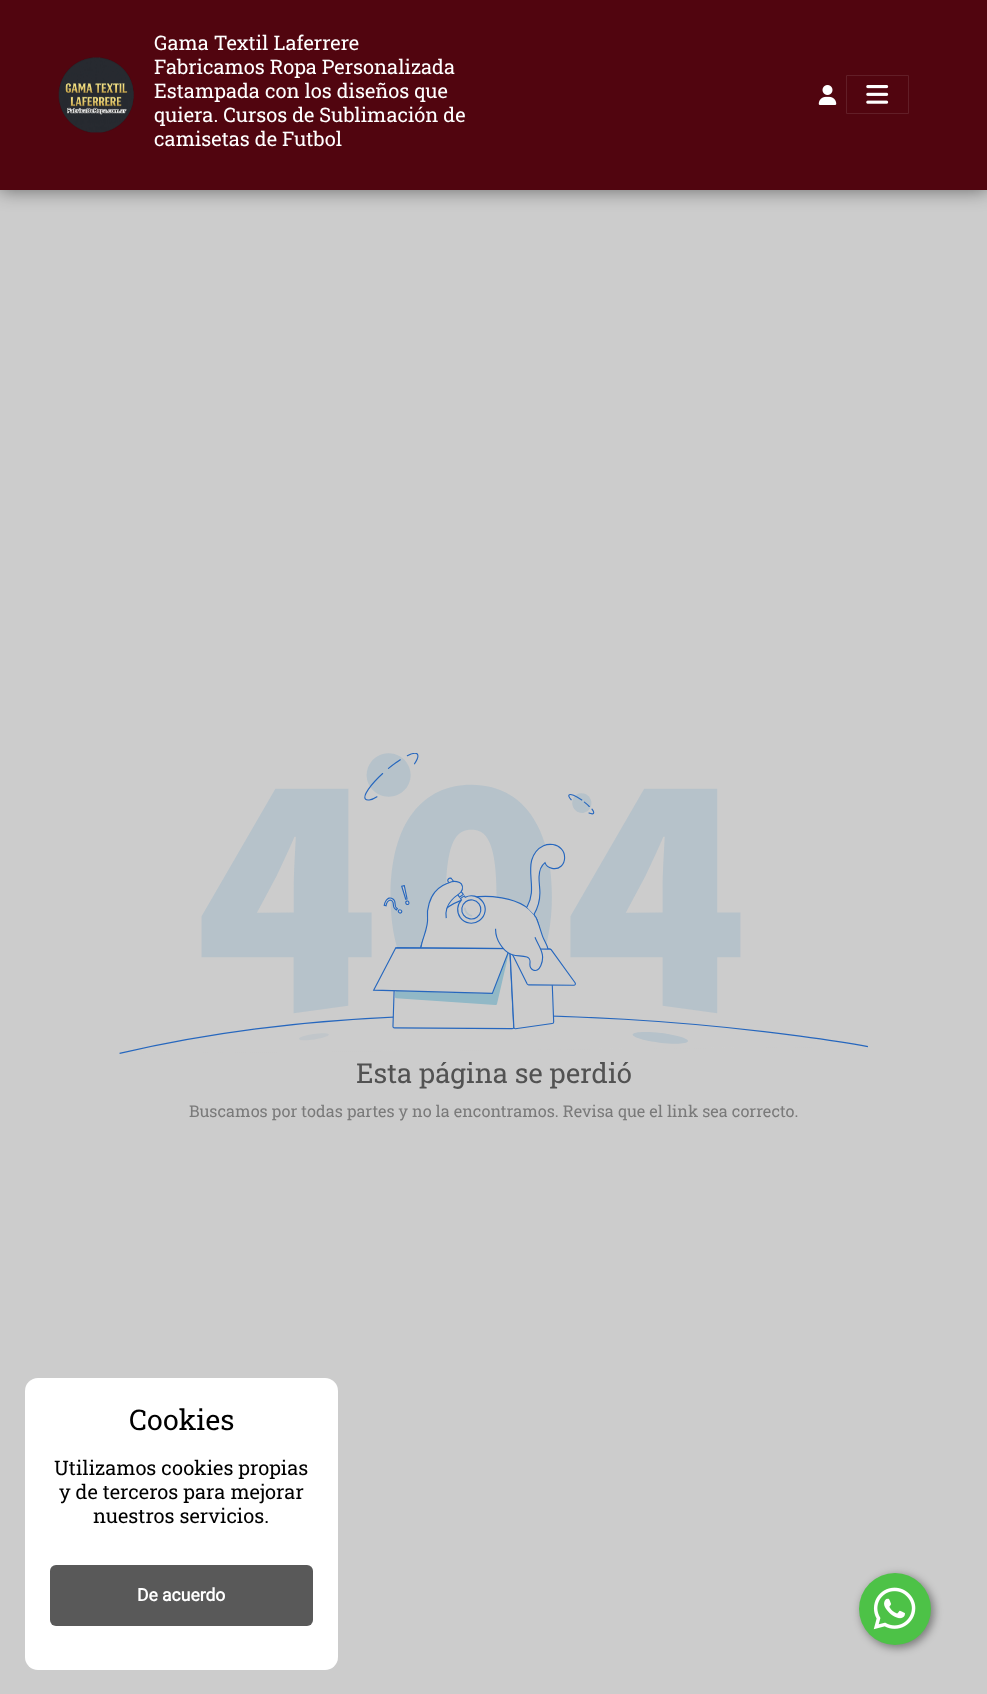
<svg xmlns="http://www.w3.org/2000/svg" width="987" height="1694">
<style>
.a{font:20px Roboto Slab;fill:#fff}
.b{font:27.5px Roboto Slab;fill:#525252}
.c{font:16.25px Roboto Slab;fill:#7a7a7a}
.d{font:28.5px Roboto Slab;fill:#000}
.e{font:20px Roboto Slab;fill:#000}
.f{font:bold 17.5px Roboto;fill:#fff}
</style>
<rect width="100%" height="100%" fill="#ccc"/>
<path fill="#00000080" filter="blur(9.5px)" d="M0 0h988v190H0z"/>
<path fill="#51050f" d="M0 0h987v190H0z"/>
<image href="1.png" x="58" y="57" width="76" height="76"/>
<image href="2.png" x="818" y="85" width="19" height="20"/>
<path fill="none" stroke="#621e27" d="M846.5 75.5h62v38H846.5z"/>
<image href="3.png" x="866" y="85" width="23" height="19"/>
<image href="4.png" x="119" y="753" width="749" height="301"/>
<rect fill="#fff" x="25" y="1378" width="313" height="292" rx="13"/>
<rect fill="#595959" x="50" y="1565" width="263" height="61" rx="6"/>
<rect fill="#00000066" filter="blur(4px)" x="861" y="1575" width="73" height="73" rx="36.5"/>
<circle fill="#4dc247" cx="895" cy="1609" r="36"/>
<image href="5.png" x="873" y="1587" width="43" height="43"/>
<text class="a" x="154" y="50">Gama Textil Laferrere</text>
<text class="a" x="154" y="74">Fabricamos Ropa Personalizada</text>
<text class="a" x="154" y="98">Estampada con los diseños que</text>
<text class="a" x="154" y="122">quiera. Cursos de Sublimación de</text>
<text class="a" x="154" y="146">camisetas de Futbol</text>
<text class="b" x="356" y="1083">Esta página se perdió</text>
<text class="c" x="189" y="1117">Buscamos por todas partes y no la encontramos. Revisa que el link sea correcto.</text>
<text class="d" x="129" y="1430">Cookies</text>
<text class="e" x="54" y="1475">Utilizamos cookies propias</text>
<text class="e" x="59" y="1499">y de terceros para mejorar</text>
<text class="e" x="93" y="1523">nuestros servicios.</text>
<text class="f" x="137" y="1601">De acuerdo</text>
</svg>
